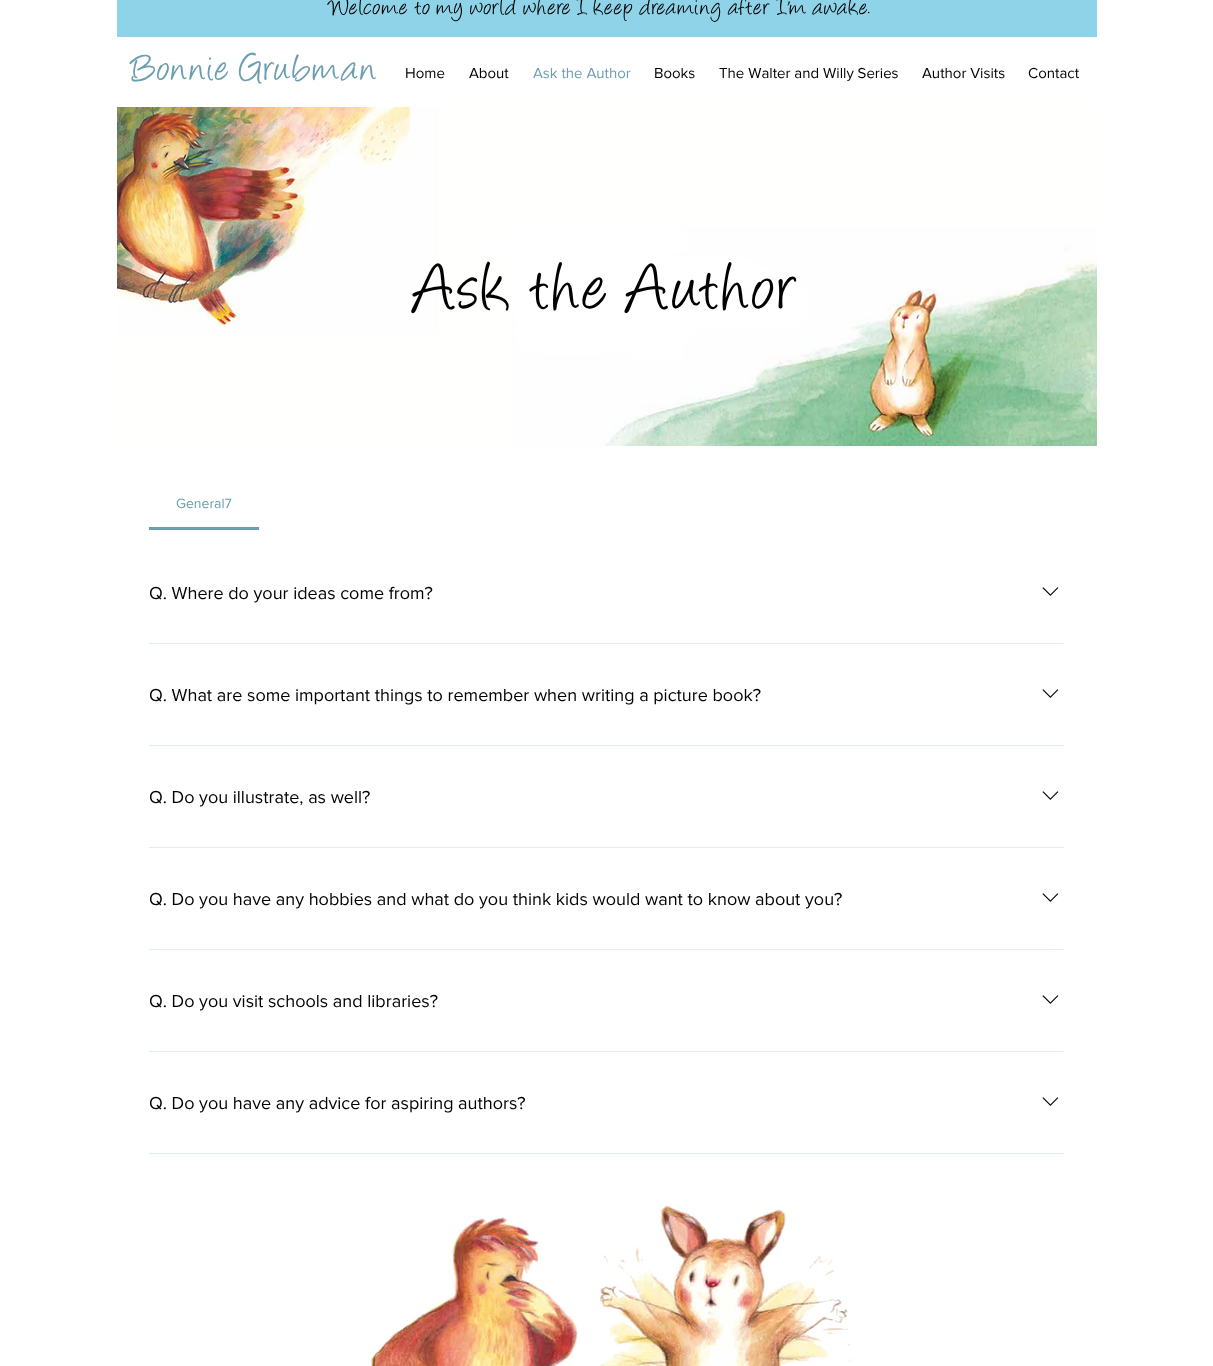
<svg xmlns="http://www.w3.org/2000/svg" width="1213" height="1366">
<style>
.a{font:27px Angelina;fill:#000}
.b{font:44px Angelina;fill:#6b9eae}
.c{font:15px 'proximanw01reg';fill:#000}
.d{font:15px 'proximanw01reg';fill:#6b9eae}
.e{font:78px Angelina;fill:#000}
.f{font:14px 'proximanw01reg';fill:#6b9eae}
.g{font:18px 'proximanw01reg';fill:#000}
</style>
<rect width="100%" height="100%" fill="#fff"/>
<path fill="#8fd3e8" d="M117 0h980v37H117z"/>
<image href="1.png" x="117" y="107" width="980" height="339"/>
<path fill="#6b9eae" d="M149 527h110v3H149z"/>
<image href="2.png" x="1042" y="587" width="17" height="9"/>
<path fill="#e1ecef" d="M149 643h915v1H149z"/>
<image href="2.png" x="1042" y="689" width="17" height="9"/>
<path fill="#e1ecef" d="M149 745h915v1H149z"/>
<image href="2.png" x="1042" y="791" width="17" height="9"/>
<path fill="#e1ecef" d="M149 847h915v1H149z"/>
<image href="2.png" x="1042" y="893" width="17" height="9"/>
<path fill="#e1ecef" d="M149 949h915v1H149z"/>
<image href="2.png" x="1042" y="995" width="17" height="9"/>
<path fill="#e1ecef" d="M149 1051h915v1H149z"/>
<image href="2.png" x="1042" y="1097" width="17" height="9"/>
<path fill="#e1ecef" d="M149 1153h915v1H149z"/>
<image href="3.png" x="371" y="1205" width="480" height="161"/>
<text class="a" x="329" y="13">Welcome to my world where I keep dreaming after I'm awake.</text>
<text class="b" x="132" y="78">Bonnie Grubman</text>
<text class="c" x="405" y="78">Home</text>
<text class="c" x="469" y="78">About</text>
<text class="d" x="533" y="78">Ask the Author</text>
<text class="c" x="654" y="78">Books</text>
<text class="c" x="719" y="78">The Walter and Willy Series</text>
<text class="c" x="922" y="78">Author Visits</text>
<text class="c" x="1028" y="78">Contact</text>
<text class="e" x="414" y="305">Ask the Author</text>
<text class="f" x="176" y="508">General7</text>
<text class="g" x="149" y="599">Q. Where do your ideas come from?</text>
<text class="g" x="149" y="701">Q. What are some important things to remember when writing a picture book?</text>
<text class="g" x="149" y="803">Q. Do you illustrate, as well?</text>
<text class="g" x="149" y="905">Q. Do you have any hobbies and what do you think kids would want to know about you?</text>
<text class="g" x="149" y="1007">Q. Do you visit schools and libraries?</text>
<text class="g" x="149" y="1109">Q. Do you have any advice for aspiring authors?</text>
</svg>
